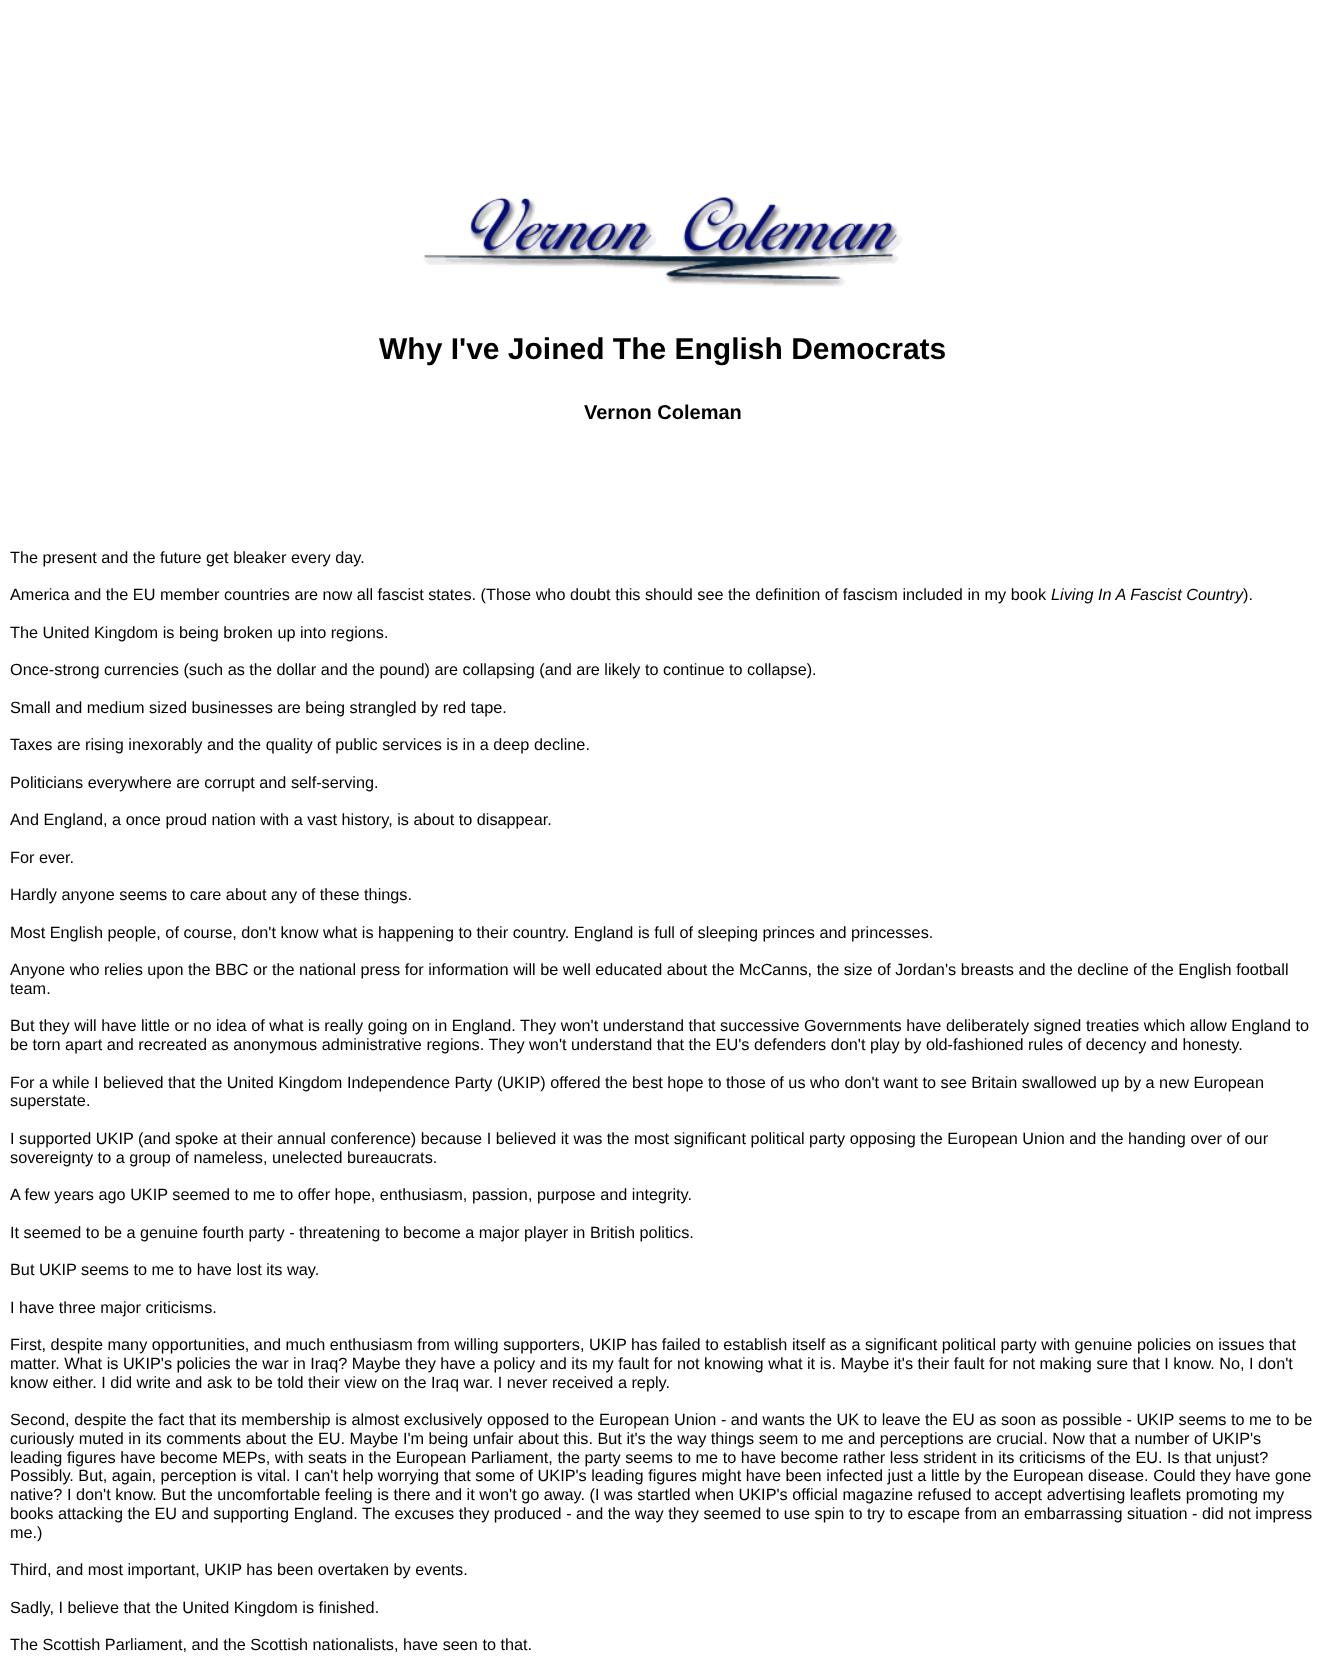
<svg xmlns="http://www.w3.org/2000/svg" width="1325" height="1678">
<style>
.a{font:bold 30px Liberation Sans;fill:#000}
.b{font:bold 20px Liberation Sans;fill:#000}
.c{font:16.25px Liberation Sans;fill:#000}
.d{font:italic 16.25px Liberation Sans;fill:#000}
</style>
<rect width="100%" height="100%" fill="#fff"/>
<image href="1.png" x="423" y="197" width="480" height="90"/>
<text class="a" x="379" y="359">Why I've Joined The English Democrats</text>
<text class="b" x="584" y="419">Vernon Coleman</text>
<text class="c" x="10" y="563">The present and the future get bleaker every day.</text>
<text class="c" x="10" y="600">America and the EU member countries are now all fascist states. (Those who doubt this should see the definition of fascism included in my book</text>
<text class="d" x="1051" y="600">Living In A Fascist Country</text>
<text class="c" x="1243" y="600">).</text>
<text class="c" x="10" y="638">The United Kingdom is being broken up into regions.</text>
<text class="c" x="10" y="675">Once-strong currencies (such as the dollar and the pound) are collapsing (and are likely to continue to collapse).</text>
<text class="c" x="10" y="713">Small and medium sized businesses are being strangled by red tape.</text>
<text class="c" x="10" y="750">Taxes are rising inexorably and the quality of public services is in a deep decline.</text>
<text class="c" x="10" y="788">Politicians everywhere are corrupt and self-serving.</text>
<text class="c" x="10" y="825">And England, a once proud nation with a vast history, is about to disappear.</text>
<text class="c" x="10" y="863">For ever.</text>
<text class="c" x="10" y="900">Hardly anyone seems to care about any of these things.</text>
<text class="c" x="10" y="938">Most English people, of course, don't know what is happening to their country. England is full of sleeping princes and princesses.</text>
<text class="c" x="10" y="975">Anyone who relies upon the BBC or the national press for information will be well educated about the McCanns, the size of Jordan's breasts and the decline of the English football</text>
<text class="c" x="10" y="994">team.</text>
<text class="c" x="10" y="1031">But they will have little or no idea of what is really going on in England. They won't understand that successive Governments have deliberately signed treaties which allow England to</text>
<text class="c" x="10" y="1050">be torn apart and recreated as anonymous administrative regions. They won't understand that the EU's defenders don't play by old-fashioned rules of decency and honesty.</text>
<text class="c" x="10" y="1088">For a while I believed that the United Kingdom Independence Party (UKIP) offered the best hope to those of us who don't want to see Britain swallowed up by a new European</text>
<text class="c" x="10" y="1106">superstate.</text>
<text class="c" x="10" y="1144">I supported UKIP (and spoke at their annual conference) because I believed it was the most significant political party opposing the European Union and the handing over of our</text>
<text class="c" x="10" y="1163">sovereignty to a group of nameless, unelected bureaucrats.</text>
<text class="c" x="10" y="1200">A few years ago UKIP seemed to me to offer hope, enthusiasm, passion, purpose and integrity.</text>
<text class="c" x="10" y="1238">It seemed to be a genuine fourth party - threatening to become a major player in British politics.</text>
<text class="c" x="10" y="1275">But UKIP seems to me to have lost its way.</text>
<text class="c" x="10" y="1313">I have three major criticisms.</text>
<text class="c" x="10" y="1350">First, despite many opportunities, and much enthusiasm from willing supporters, UKIP has failed to establish itself as a significant political party with genuine policies on issues that</text>
<text class="c" x="10" y="1369">matter. What is UKIP's policies the war in Iraq? Maybe they have a policy and its my fault for not knowing what it is. Maybe it's their fault for not making sure that I know. No, I don't</text>
<text class="c" x="10" y="1388">know either. I did write and ask to be told their view on the Iraq war. I never received a reply.</text>
<text class="c" x="10" y="1425">Second, despite the fact that its membership is almost exclusively opposed to the European Union - and wants the UK to leave the EU as soon as possible - UKIP seems to me to be</text>
<text class="c" x="10" y="1444">curiously muted in its comments about the EU. Maybe I'm being unfair about this. But it's the way things seem to me and perceptions are crucial. Now that a number of UKIP's</text>
<text class="c" x="10" y="1463">leading figures have become MEPs, with seats in the European Parliament, the party seems to me to have become rather less strident in its criticisms of the EU. Is that unjust?</text>
<text class="c" x="10" y="1481">Possibly. But, again, perception is vital. I can't help worrying that some of UKIP's leading figures might have been infected just a little by the European disease. Could they have gone</text>
<text class="c" x="10" y="1500">native? I don't know. But the uncomfortable feeling is there and it won't go away. (I was startled when UKIP's official magazine refused to accept advertising leaflets promoting my</text>
<text class="c" x="10" y="1519">books attacking the EU and supporting England.</text>
<text class="c" x="362" y="1519">The excuses they produced - and the way they seemed to use spin to try to escape from an embarrassing situation - did not impress</text>
<text class="c" x="10" y="1538">me.)</text>
<text class="c" x="10" y="1575">Third, and most important, UKIP has been overtaken by events.</text>
<text class="c" x="10" y="1613">Sadly, I believe that the United Kingdom is finished.</text>
<text class="c" x="10" y="1650">The Scottish Parliament, and the Scottish nationalists, have seen to that.</text>
</svg>
